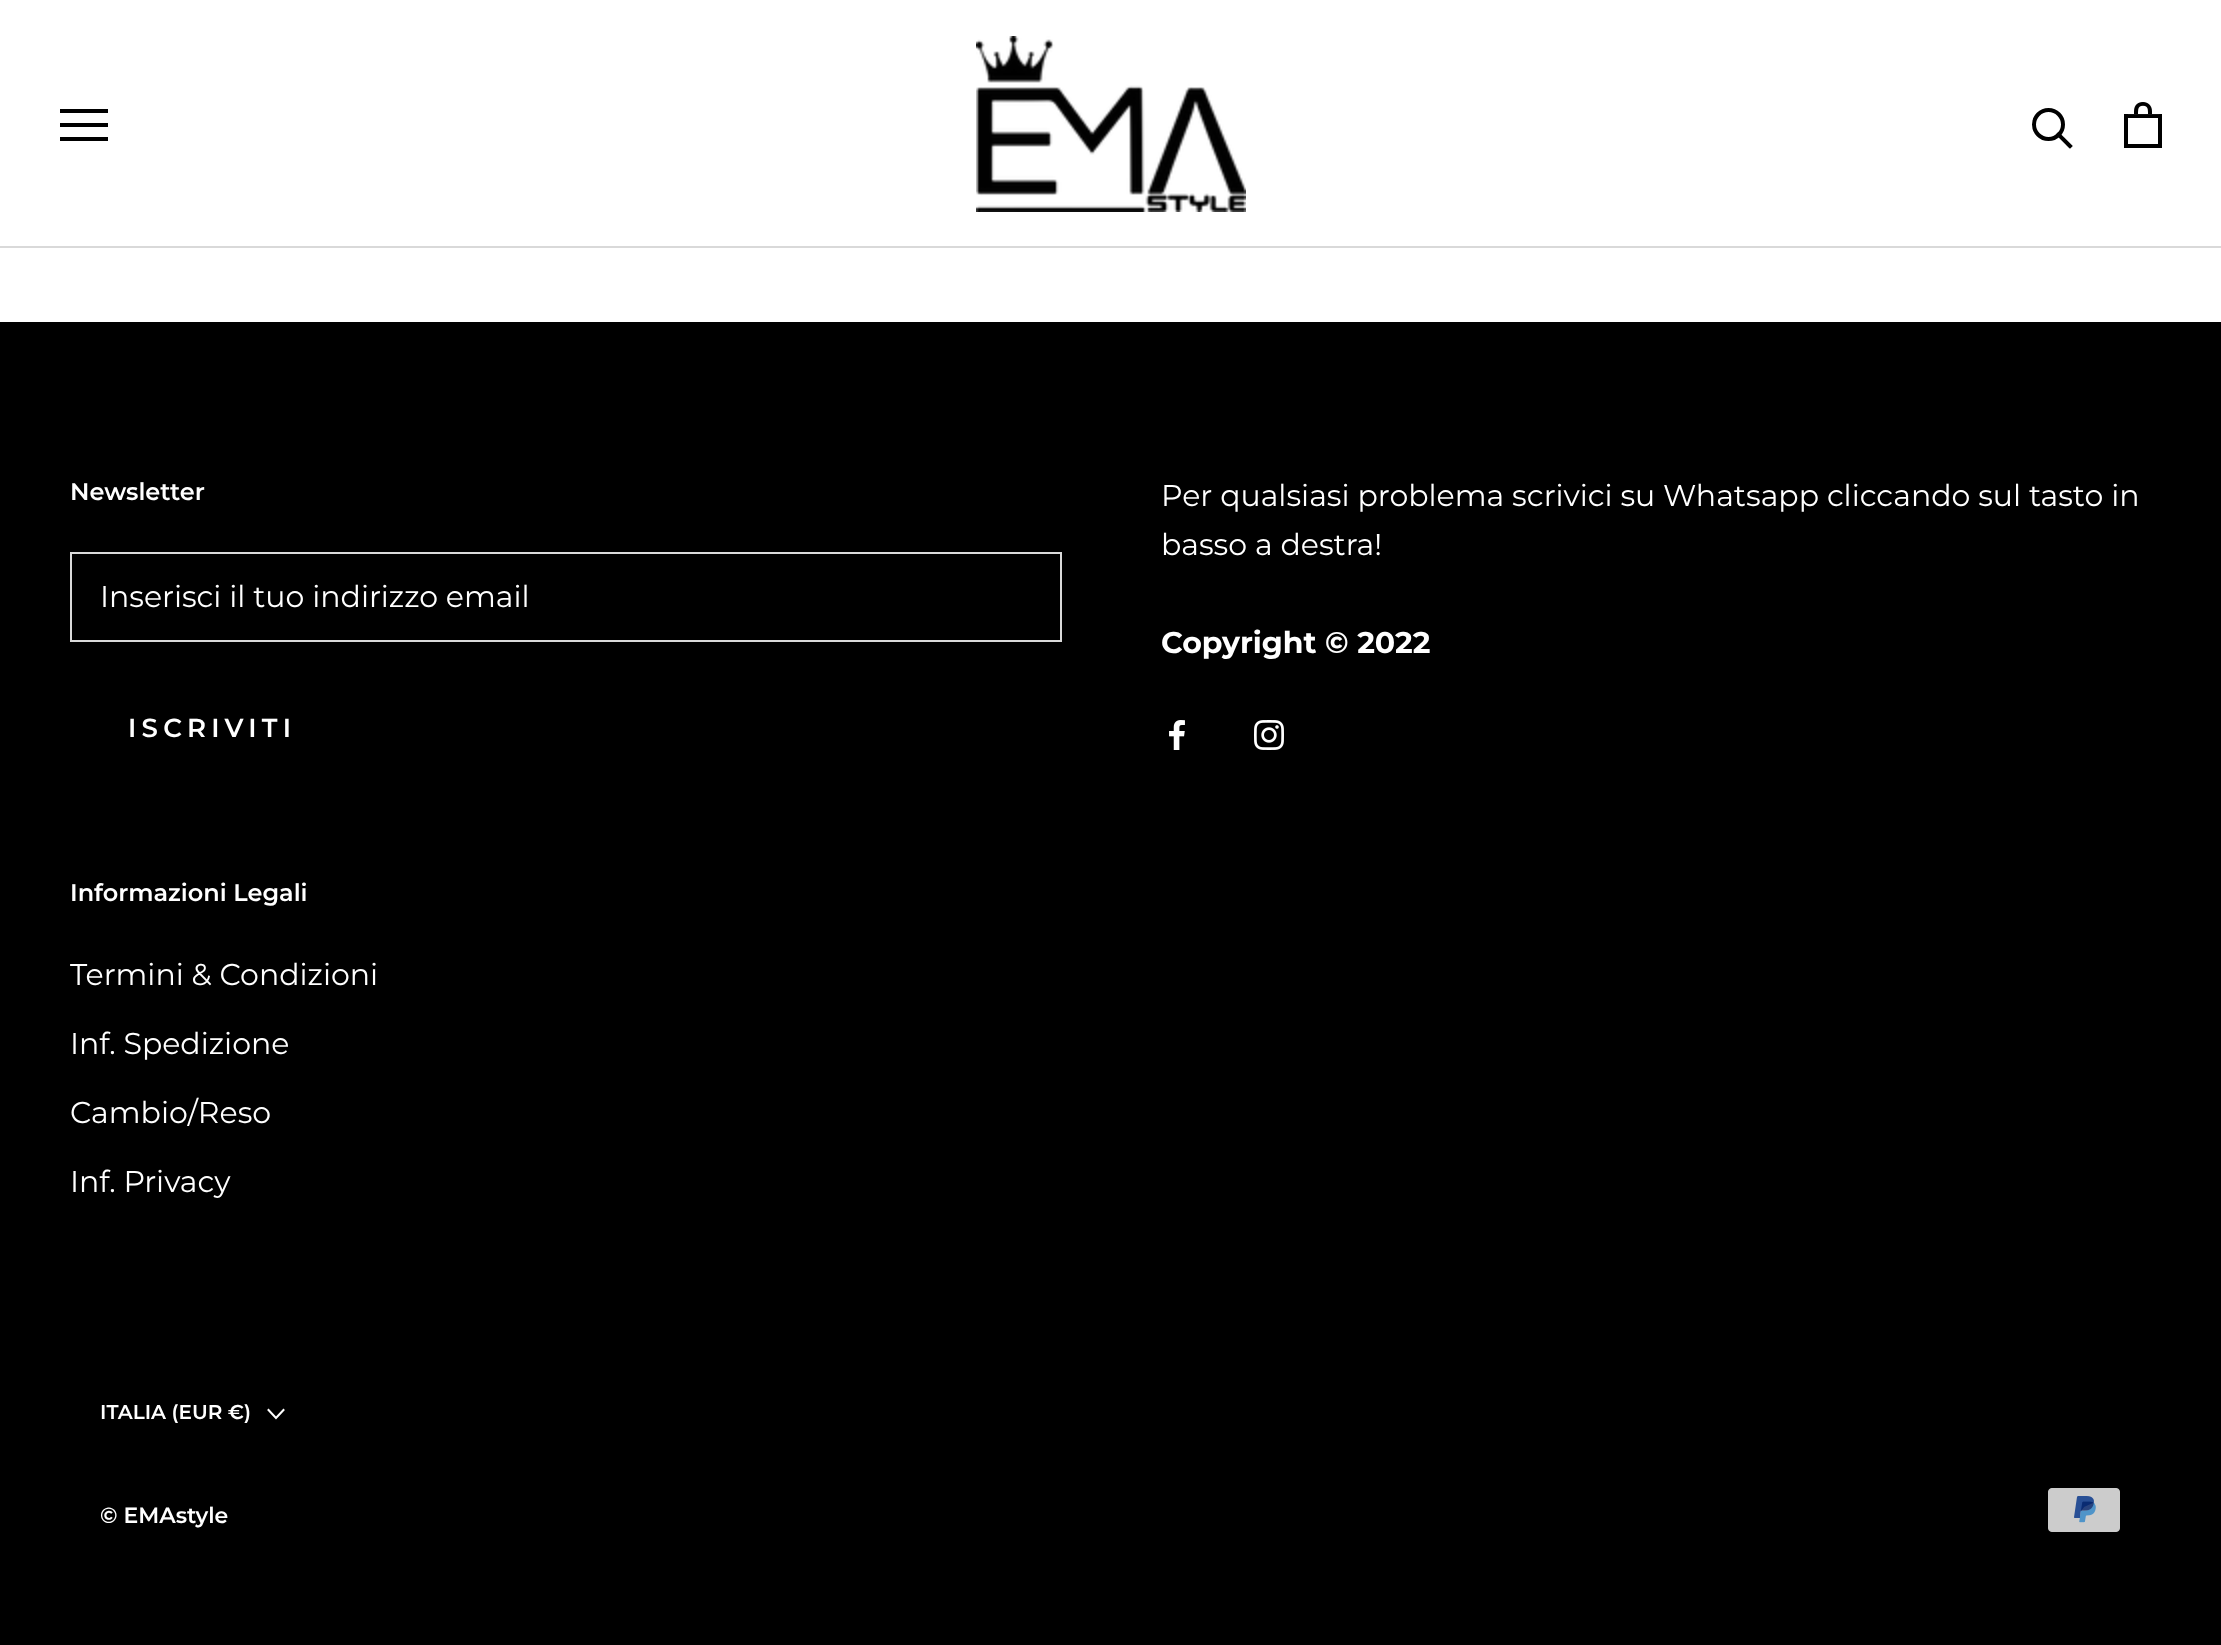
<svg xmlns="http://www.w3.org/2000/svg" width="2221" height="1645">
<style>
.a{font:600 24px Montserrat;fill:#fff}
.b{font:30px Montserrat;fill:#fff}
.c{font:600 26px Montserrat;letter-spacing:5.25px;fill:#fff}
.d{font:bold 30px Montserrat;fill:#fff}
.e{font:600 20px Montserrat;fill:#fff}
.f{font:600 22px Montserrat;fill:#fff}
</style>
<rect width="100%" height="100%" fill="#fff"/>
<path fill="#d9d9d9" d="M0 246h2221v2H0z"/>
<path fill="#000" d="M60 141v-4h48v4zm0-18h48v4h-48zm0-14h48v4h-48z"/>
<image href="1.png" x="976" y="36" width="270" height="176"/>
<path fill="none" stroke="#000" stroke-width="4" stroke-linecap="square" d="M2070 146l-11.5-11.5"/>
<circle fill="none" stroke="#000" stroke-width="4" cx="2048.5" cy="124.5" r="14.5"/>
<image href="2.png" x="2124" y="102" width="38" height="46"/>
<path fill="#000" d="M0 322h2221v1323H0z"/>
<path fill="none" stroke="#dadada" stroke-width="2" d="M71 553h990v88H71z"/>
<image href="3.png" x="1169" y="720" width="16" height="30"/>
<image href="4.png" x="1254" y="720" width="30" height="30"/>
<path fill="none" stroke="#fff" stroke-width="2" stroke-linecap="square" d="M283.5 1410l-7.5 8l-7.5-8"/>
<image href="5.png" x="2048" y="1488" width="72" height="44"/>
<text class="a" x="70" y="500">Newsletter</text>
<text class="b" x="100" y="607">Inserisci il tuo indirizzo email</text>
<text class="c" x="128" y="737">ISCRIVITI</text>
<text class="b" x="1161" y="506">Per qualsiasi problema scrivici su Whatsapp cliccando sul tasto in</text>
<text class="b" x="1161" y="555">basso a destra!</text>
<text class="d" x="1161" y="653">Copyright © 2022</text>
<text class="a" x="70" y="901">Informazioni Legali</text>
<text class="b" x="70" y="985">Termini &amp; Condizioni</text>
<text class="b" x="70" y="1054">Inf. Spedizione</text>
<text class="b" x="70" y="1123">Cambio/Reso</text>
<text class="b" x="70" y="1192">Inf. Privacy</text>
<text class="e" x="100" y="1419">ITALIA (EUR €)</text>
<text class="f" x="100" y="1523">© EMAstyle</text>
</svg>
